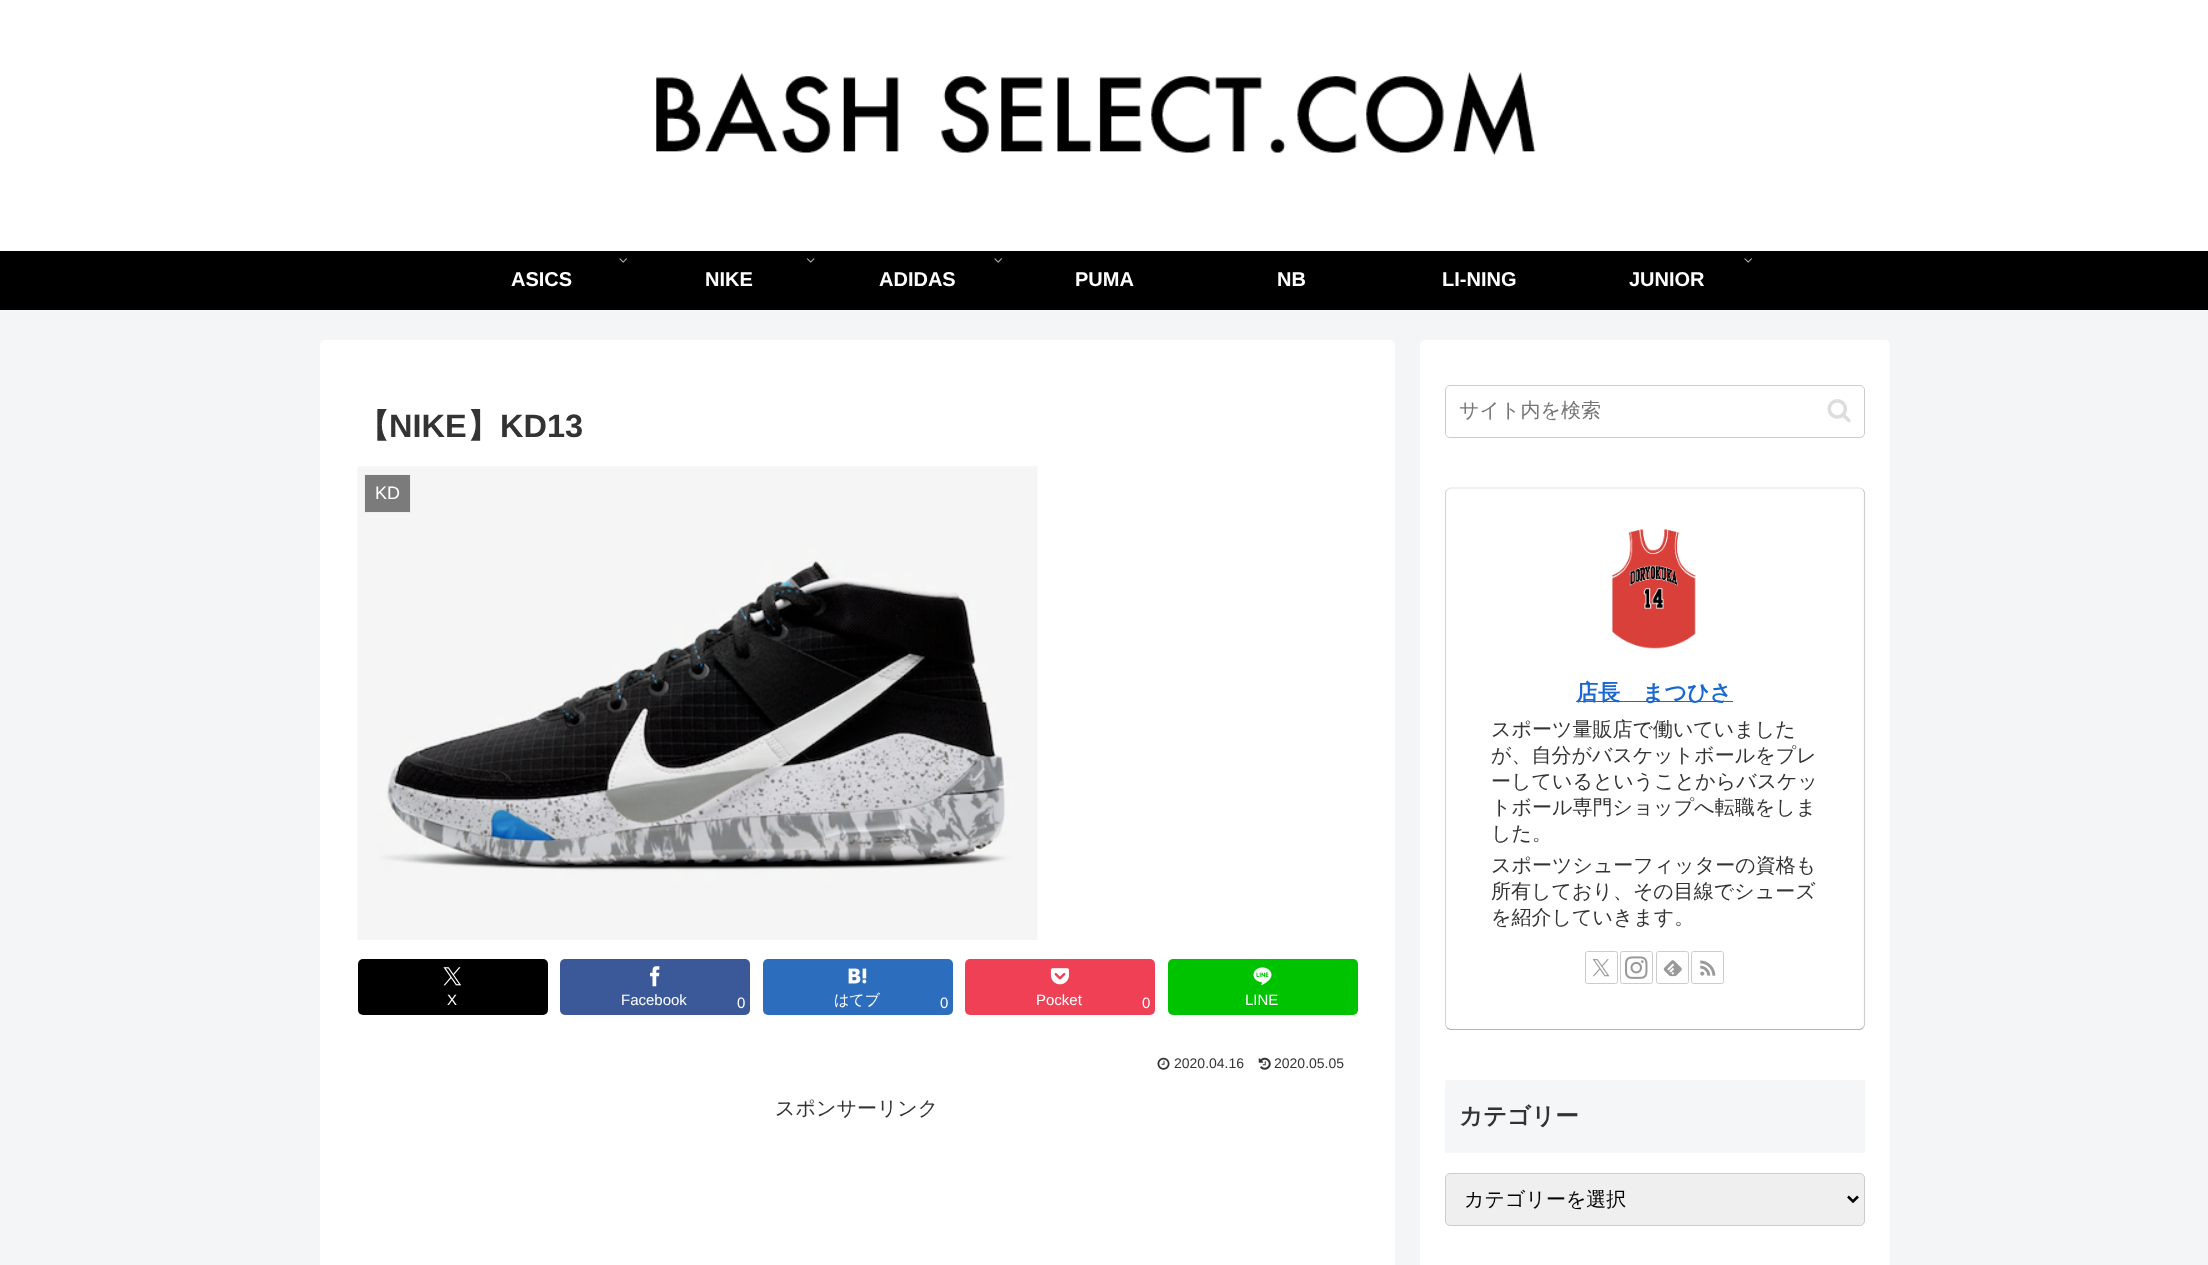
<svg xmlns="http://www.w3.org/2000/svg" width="2208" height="1265">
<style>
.a{font:bold 20px Liberation Sans;fill:#fff}
.b{font:bold 32.5px WenQuanYi Zen Hei;fill:#333}
.c{font:bold 32.5px Liberation Sans;fill:#333}
.d{font:18px Liberation Sans;fill:#fff}
.e{font:15px Liberation Sans;fill:#fff}
.f{font:500 15px WenQuanYi Zen Hei;fill:#fff}
.g{font:14px Liberation Sans;fill:#333}
.h{font:500 20px WenQuanYi Zen Hei;fill:#333}
.i{font:500 20px WenQuanYi Zen Hei;fill:#757575}
.j{font:bold 22px WenQuanYi Zen Hei;fill:#1967d2}
.k{font:bold 23.5px WenQuanYi Zen Hei;fill:#333}
.l{font:500 20px WenQuanYi Zen Hei;fill:#000}
</style>
<rect width="100%" height="100%" fill="#f4f5f7"/>
<path fill="#fff" d="M0 0h2208v251H0z"/>
<image href="1.png" x="656" y="71" width="880" height="85"/>
<path fill="#000" d="M0 251h2208v59H0z"/>
<image href="2.png" x="619" y="258" width="8" height="5"/>
<image href="3.png" x="806" y="258" width="9" height="5"/>
<image href="2.png" x="994" y="258" width="8" height="5"/>
<image href="2.png" x="1744" y="258" width="8" height="5"/>
<rect fill="#fff" x="320" y="340" width="1075" height="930" rx="5"/>
<image href="4.png" x="357" y="466" width="681" height="474"/>
<path fill="#7b7b7b" stroke="#efefef" d="M364.5 474.5h46v38H364.5z"/>
<rect fill="#000" x="358" y="959" width="190" height="56" rx="5"/>
<image href="5.png" x="443" y="967" width="19" height="19"/>
<rect fill="#3b5998" x="560" y="959" width="190" height="56" rx="5"/>
<image href="6.png" x="650" y="966" width="10" height="21"/>
<rect fill="#2c6ebd" x="763" y="959" width="190" height="56" rx="5"/>
<image href="7.png" x="848" y="968" width="19" height="16"/>
<rect fill="#ef4056" x="965" y="959" width="190" height="56" rx="5"/>
<image href="8.png" x="1050" y="968" width="19" height="17"/>
<rect fill="#00c300" x="1168" y="959" width="190" height="56" rx="5"/>
<image href="9.png" x="1253" y="967" width="19" height="18"/>
<image href="10.png" x="1157" y="1057" width="13" height="13"/>
<image href="11.png" x="1258" y="1057" width="13" height="13"/>
<rect fill="#fff" x="1420" y="340" width="470" height="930" rx="5"/>
<rect fill="none" stroke="#ccc" x="1445.5" y="385.5" width="419" height="52" rx="4.5"/>
<image href="12.png" x="1827" y="399" width="24" height="24"/>
<path fill="none" stroke="#e3e3e3" stroke-width="1.2" d="M1447 489.5l3-1.5h410l3 1.5"/>
<path fill="none" stroke="#cecece" stroke-width="1.2" d="M1863 489.5l1.5 3v532.5l-1.5 3"/>
<path fill="none" stroke="#b4b4b4" stroke-width="1.2" d="M1863 1028l-3 1.5h-410l-3-1.5"/>
<path fill="none" stroke="#d6d6d6" stroke-width="1.2" d="M1447 1028l-1.5-3v-532.5l1.5-3"/>
<image href="13.png" x="1612" y="529" width="84" height="120"/>
<path fill="#1967d2" d="M1576 701h157v1H1576z"/>
<rect fill="none" stroke="#ccc" x="1585.5" y="951.5" width="32" height="32" rx="2"/>
<image href="14.png" x="1592" y="959" width="18" height="18"/>
<rect fill="none" stroke="#ccc" x="1620.5" y="951.5" width="32" height="32" rx="2"/>
<image href="15.png" x="1625" y="956" width="23" height="23"/>
<rect fill="none" stroke="#ccc" x="1656.5" y="951.5" width="32" height="32" rx="2"/>
<image href="16.png" x="1663" y="960" width="19" height="17"/>
<rect fill="none" stroke="#ccc" x="1691.5" y="951.5" width="32" height="32" rx="2"/>
<image href="17.png" x="1700" y="960" width="16" height="16"/>
<rect fill="#f5f6f7" x="1445" y="1080" width="420" height="73" rx="2.5"/>
<rect fill="#efefef" stroke="#ccc" x="1445.5" y="1173.5" width="419" height="52" rx="4.5"/>
<path fill="none" stroke="#000" stroke-width="2.5" d="M1848 1196.5l5 5l5-5"/>
<text class="a" x="511" y="286">ASICS</text>
<text class="a" x="705" y="286">NIKE</text>
<text class="a" x="879" y="286">ADIDAS</text>
<text class="a" x="1075" y="286">PUMA</text>
<text class="a" x="1277" y="286">NB</text>
<text class="a" x="1442" y="286">LI-NING</text>
<text class="a" x="1629" y="286">JUNIOR</text>
<text class="b" x="357" y="437">【</text>
<text class="c" x="389" y="437">NIKE</text>
<text class="b" x="467" y="437">】</text>
<text class="c" x="500" y="437">KD13</text>
<text class="d" x="375" y="499">KD</text>
<text class="e" x="447" y="1005">X</text>
<text class="e" x="621" y="1005">Facebook</text>
<text class="e" x="737" y="1008">0</text>
<text class="f" x="834" y="1005">はてブ</text>
<text class="e" x="940" y="1008">0</text>
<text class="e" x="1036" y="1005">Pocket</text>
<text class="e" x="1142" y="1008">0</text>
<text class="e" x="1245" y="1005">LINE</text>
<text class="g" x="1174" y="1068">2020.04.16</text>
<text class="g" x="1274" y="1068">2020.05.05</text>
<text class="h" x="775" y="1115">スポンサーリンク</text>
<text class="i" x="1459" y="417">サイト内を検索</text>
<text class="j" x="1576" y="700">店長　まつひさ</text>
<text class="h" x="1491" y="736">スポーツ量販店で働いていました</text>
<text class="h" x="1491" y="762">が、自分がバスケットボールをプレ</text>
<text class="h" x="1491" y="788">ーしているということからバスケッ</text>
<text class="h" x="1491" y="814">トボール専門ショップへ転職をしま</text>
<text class="h" x="1491" y="840">した。</text>
<text class="h" x="1491" y="872">スポーツシューフィッターの資格も</text>
<text class="h" x="1491" y="898">所有しており、その目線でシューズ</text>
<text class="h" x="1491" y="924">を紹介していきます。</text>
<text class="k" x="1459" y="1124">カテゴリー</text>
<text class="l" x="1464" y="1206">カテゴリーを選択</text>
</svg>
